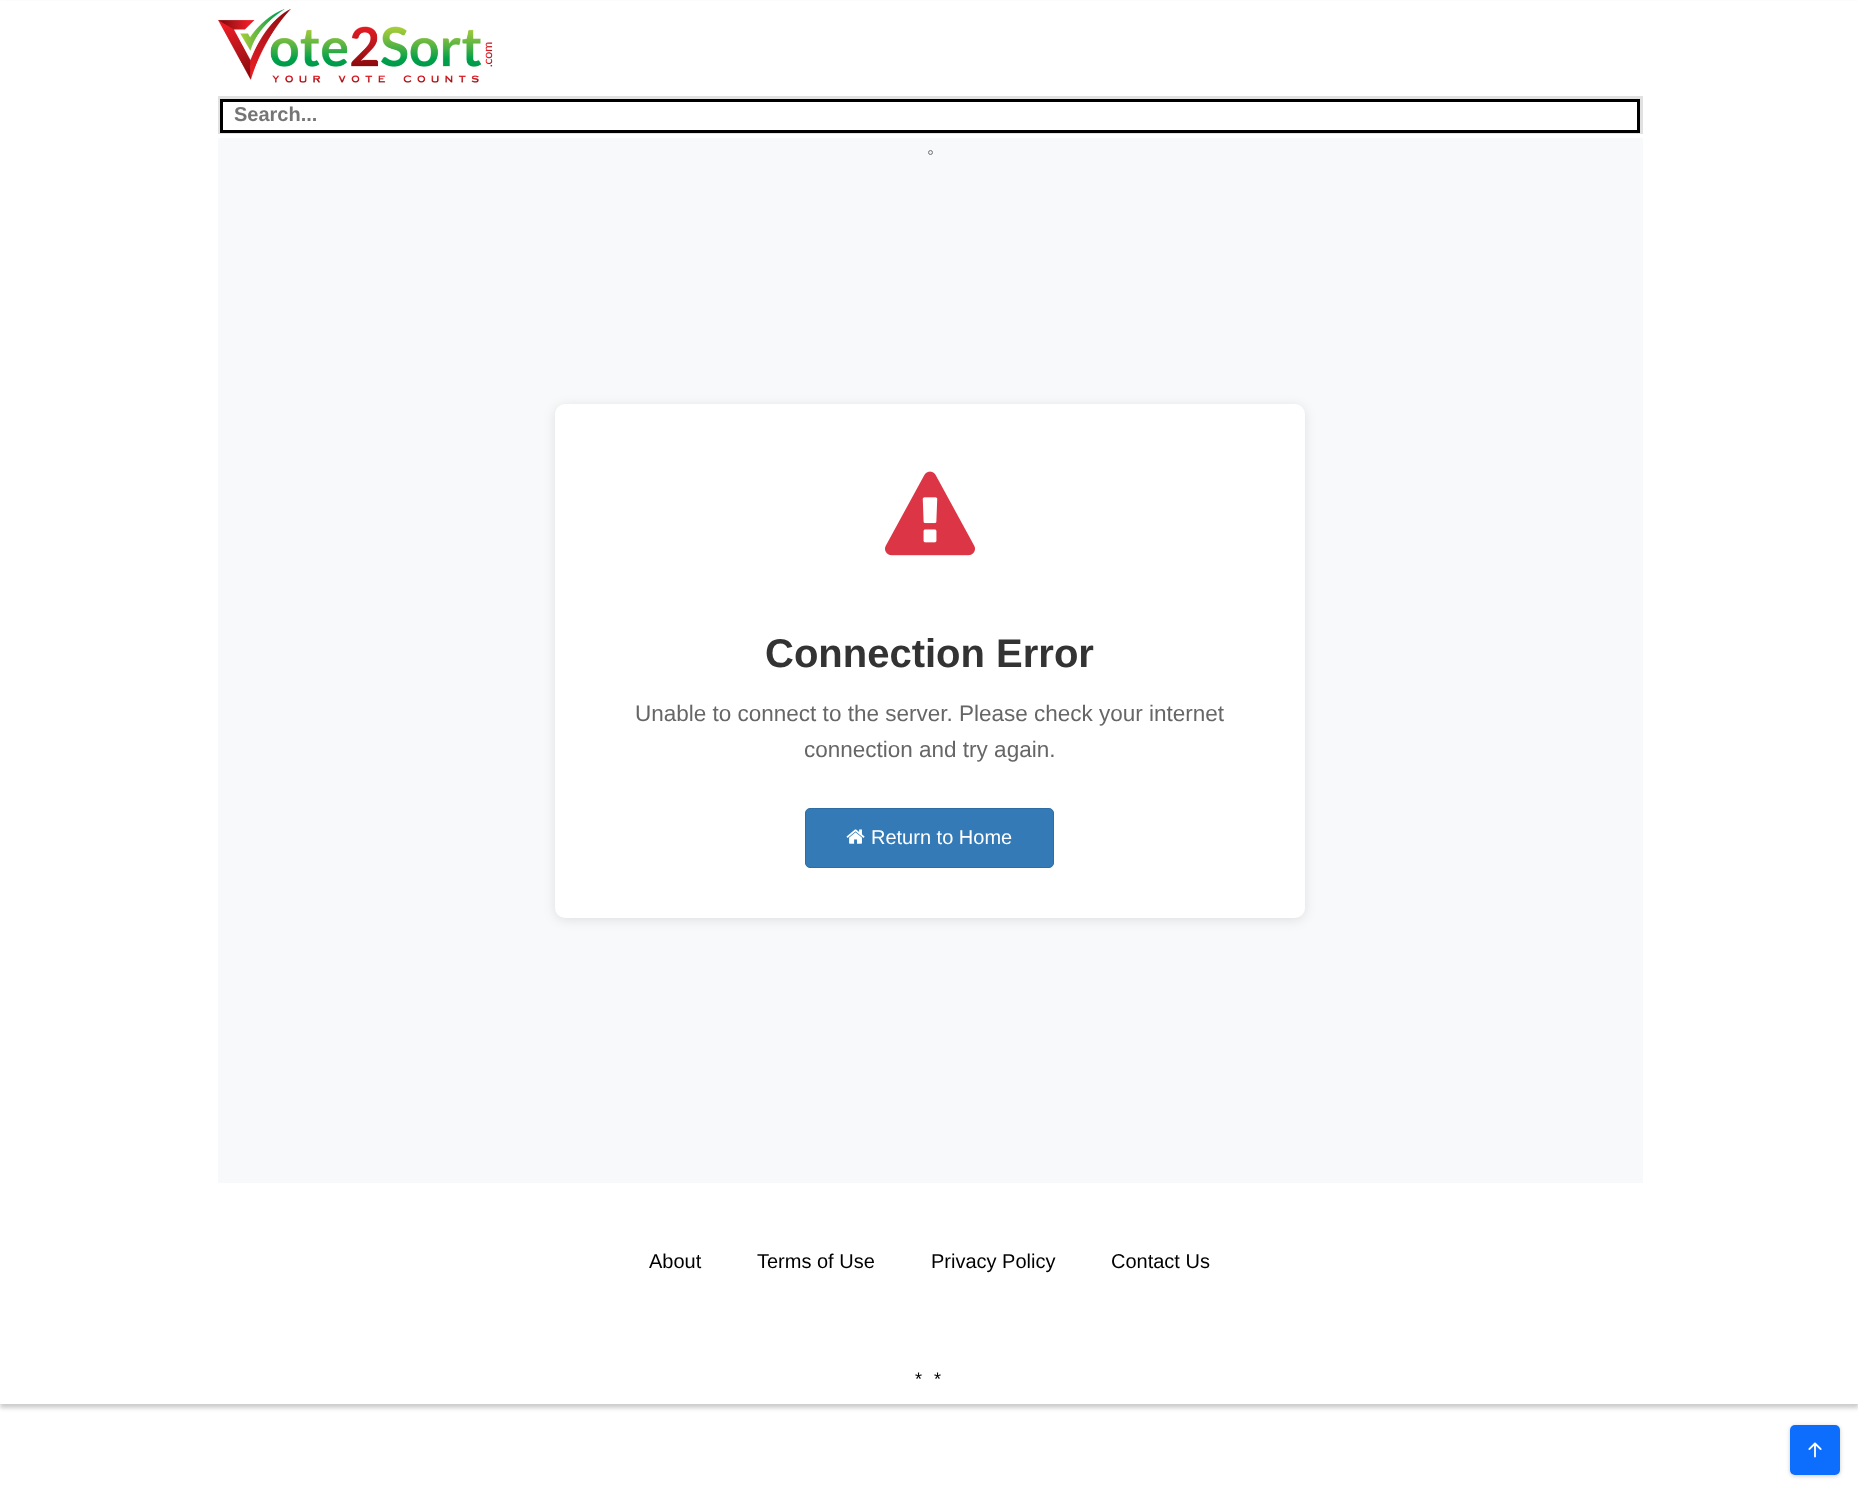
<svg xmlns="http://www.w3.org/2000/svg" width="1858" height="1493">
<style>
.a{font:bold 20px Liberation Sans;fill:#757575}
.b{font:bold 40px Liberation Sans;fill:#333}
.c{font:22.5px Liberation Sans;fill:#666}
.d{font:20px Liberation Sans;fill:#fff}
.e{font:20px Liberation Sans;fill:#000}
.f{font:18px Liberation Sans;letter-spacing:2px;fill:#000}
</style>
<rect width="100%" height="100%" fill="#fff"/>
<path fill="#00000033" filter="blur(2px)" d="M0 4h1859v1404H0z"/>
<path fill="#fff" d="M0 1h1858v1403H0z"/>
<image href="1.png" x="218" y="9" width="275" height="74"/>
<path fill="none" stroke="#e1e1e1" stroke-width="3" d="M219.5 97.5h1422v35H219.5z"/>
<path fill="none" stroke="#000" stroke-width="3" d="M221.5 100.5h1417v31H221.5z"/>
<path fill="#f8f9fa" d="M218 138h1425v1045H218z"/>
<circle fill="#efefef" stroke="#767676" cx="930.5" cy="152.5" r="2"/>
<rect fill="#0000001a" filter="blur(6px)" x="555" y="406" width="750" height="514" rx="10"/>
<rect fill="#fff" x="555" y="404" width="750" height="514" rx="10"/>
<image href="2.png" x="885" y="471" width="90" height="85"/>
<rect fill="#337ab7" stroke="#2e6da4" x="805.5" y="808.5" width="248" height="59" rx="4.5"/>
<image href="3.png" x="846" y="829" width="19" height="15"/>
<rect fill="#00000033" filter="blur(2px)" x="1790" y="1426" width="50" height="50" rx="5"/>
<rect fill="#0d6efd" x="1790" y="1425" width="50" height="50" rx="5"/>
<image href="4.png" x="1808" y="1442" width="14" height="16"/>
<text class="a" x="234" y="121">Search...</text>
<text class="b" x="765" y="667">Connection Error</text>
<text class="c" x="635" y="721">Unable to connect to the server. Please check your internet</text>
<text class="c" x="804" y="757">connection and try again.</text>
<text class="d" x="871" y="844">Return to Home</text>
<text class="e" x="649" y="1268">About</text>
<text class="e" x="757" y="1268">Terms of Use</text>
<text class="e" x="931" y="1268">Privacy Policy</text>
<text class="e" x="1111" y="1268">Contact Us</text>
<text class="f" x="915" y="1385">*</text>
<text class="f" x="934" y="1385">*</text>
</svg>
